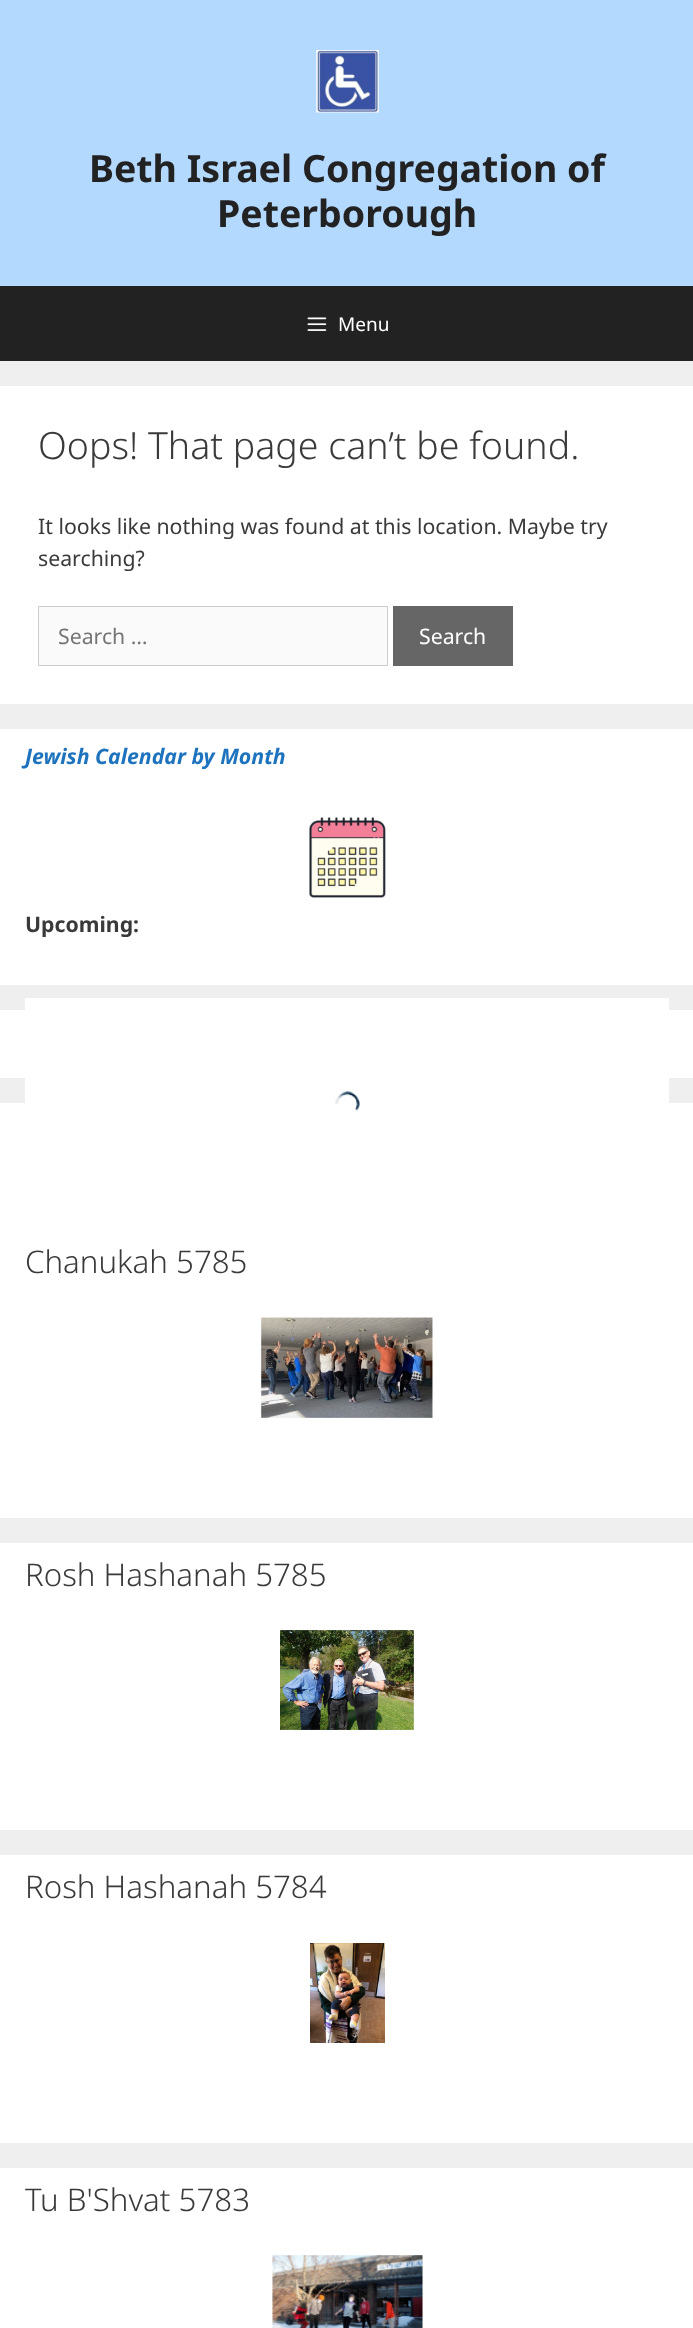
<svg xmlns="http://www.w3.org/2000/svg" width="693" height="2328">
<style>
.a{font:bold 37.5px Noto Sans;fill:#222}
.b{font:19px Noto Sans;fill:#fff}
.c{font:300 37.5px Noto Sans;fill:#3a3a3a}
.d{font:21.25px Noto Sans;fill:#3a3a3a}
.e{font:21.25px Noto Sans;fill:#757575}
.f{font:21.25px Noto Sans;fill:#fff}
.g{font:italic bold 21.25px Noto Sans;fill:#1e73be}
.h{font:bold 21.25px Noto Sans;fill:#3a3a3a}
.i{font:300 31.25px Noto Sans;fill:#3a3a3a}
</style>
<rect width="100%" height="100%" fill="#efefef"/>
<path fill="#b4d9ff" d="M0 0h693v286H0z"/>
<image href="1.png" x="316" y="50" width="63" height="63"/>
<path fill="#222" d="M0 286h693v75H0z"/>
<image href="2.png" x="307" y="317" width="20" height="14"/>
<path fill="#fff" d="M0 386h693v318H0z"/>
<path fill="#fafafa" stroke="#ccc" d="M38.5 606.5h349v59H38.5z"/>
<path fill="#666" d="M393 606h120v60H393z"/>
<path fill="#fff" d="M0 729h693v256H0z"/>
<image href="3.png" x="309" y="817" width="77" height="81"/>
<path fill="#fff" d="M0 1010h693v68H0z"/>
<path fill="#fff" d="M25 998h644v105H25z"/>
<path fill="#fff" d="M0 1103h693v415H0z"/>
<image href="4.png" x="335" y="1091" width="25" height="20"/>
<image href="5.png" x="260" y="1317" width="173" height="101"/>
<path fill="#fff" d="M0 1543h693v287H0z"/>
<image href="6.png" x="280" y="1630" width="134" height="100"/>
<path fill="#fff" d="M0 1855h693v288H0z"/>
<image href="7.png" x="310" y="1943" width="75" height="100"/>
<path fill="#fff" d="M0 2168h693v160H0z"/>
<image href="8.png" x="272" y="2255" width="151" height="73"/>
<text class="a" x="89" y="182">Beth Israel Congregation of</text>
<text class="a" x="217" y="227">Peterborough</text>
<text class="b" x="338" y="331">Menu</text>
<text class="c" x="38" y="459">Oops! That page can’t be found.</text>
<text class="d" x="38" y="534">It looks like nothing was found at this location. Maybe try</text>
<text class="d" x="38" y="566">searching?</text>
<text class="e" x="58" y="644">Search …</text>
<text class="f" x="419" y="644">Search</text>
<text class="g" x="25" y="764">Jewish Calendar by Month</text>
<text class="h" x="25" y="932">Upcoming:</text>
<text class="i" x="25" y="1273">Chanukah 5785</text>
<text class="i" x="25" y="1586">Rosh Hashanah 5785</text>
<text class="i" x="25" y="1898">Rosh Hashanah 5784</text>
<text class="i" x="25" y="2211">Tu B'Shvat 5783</text>
</svg>
